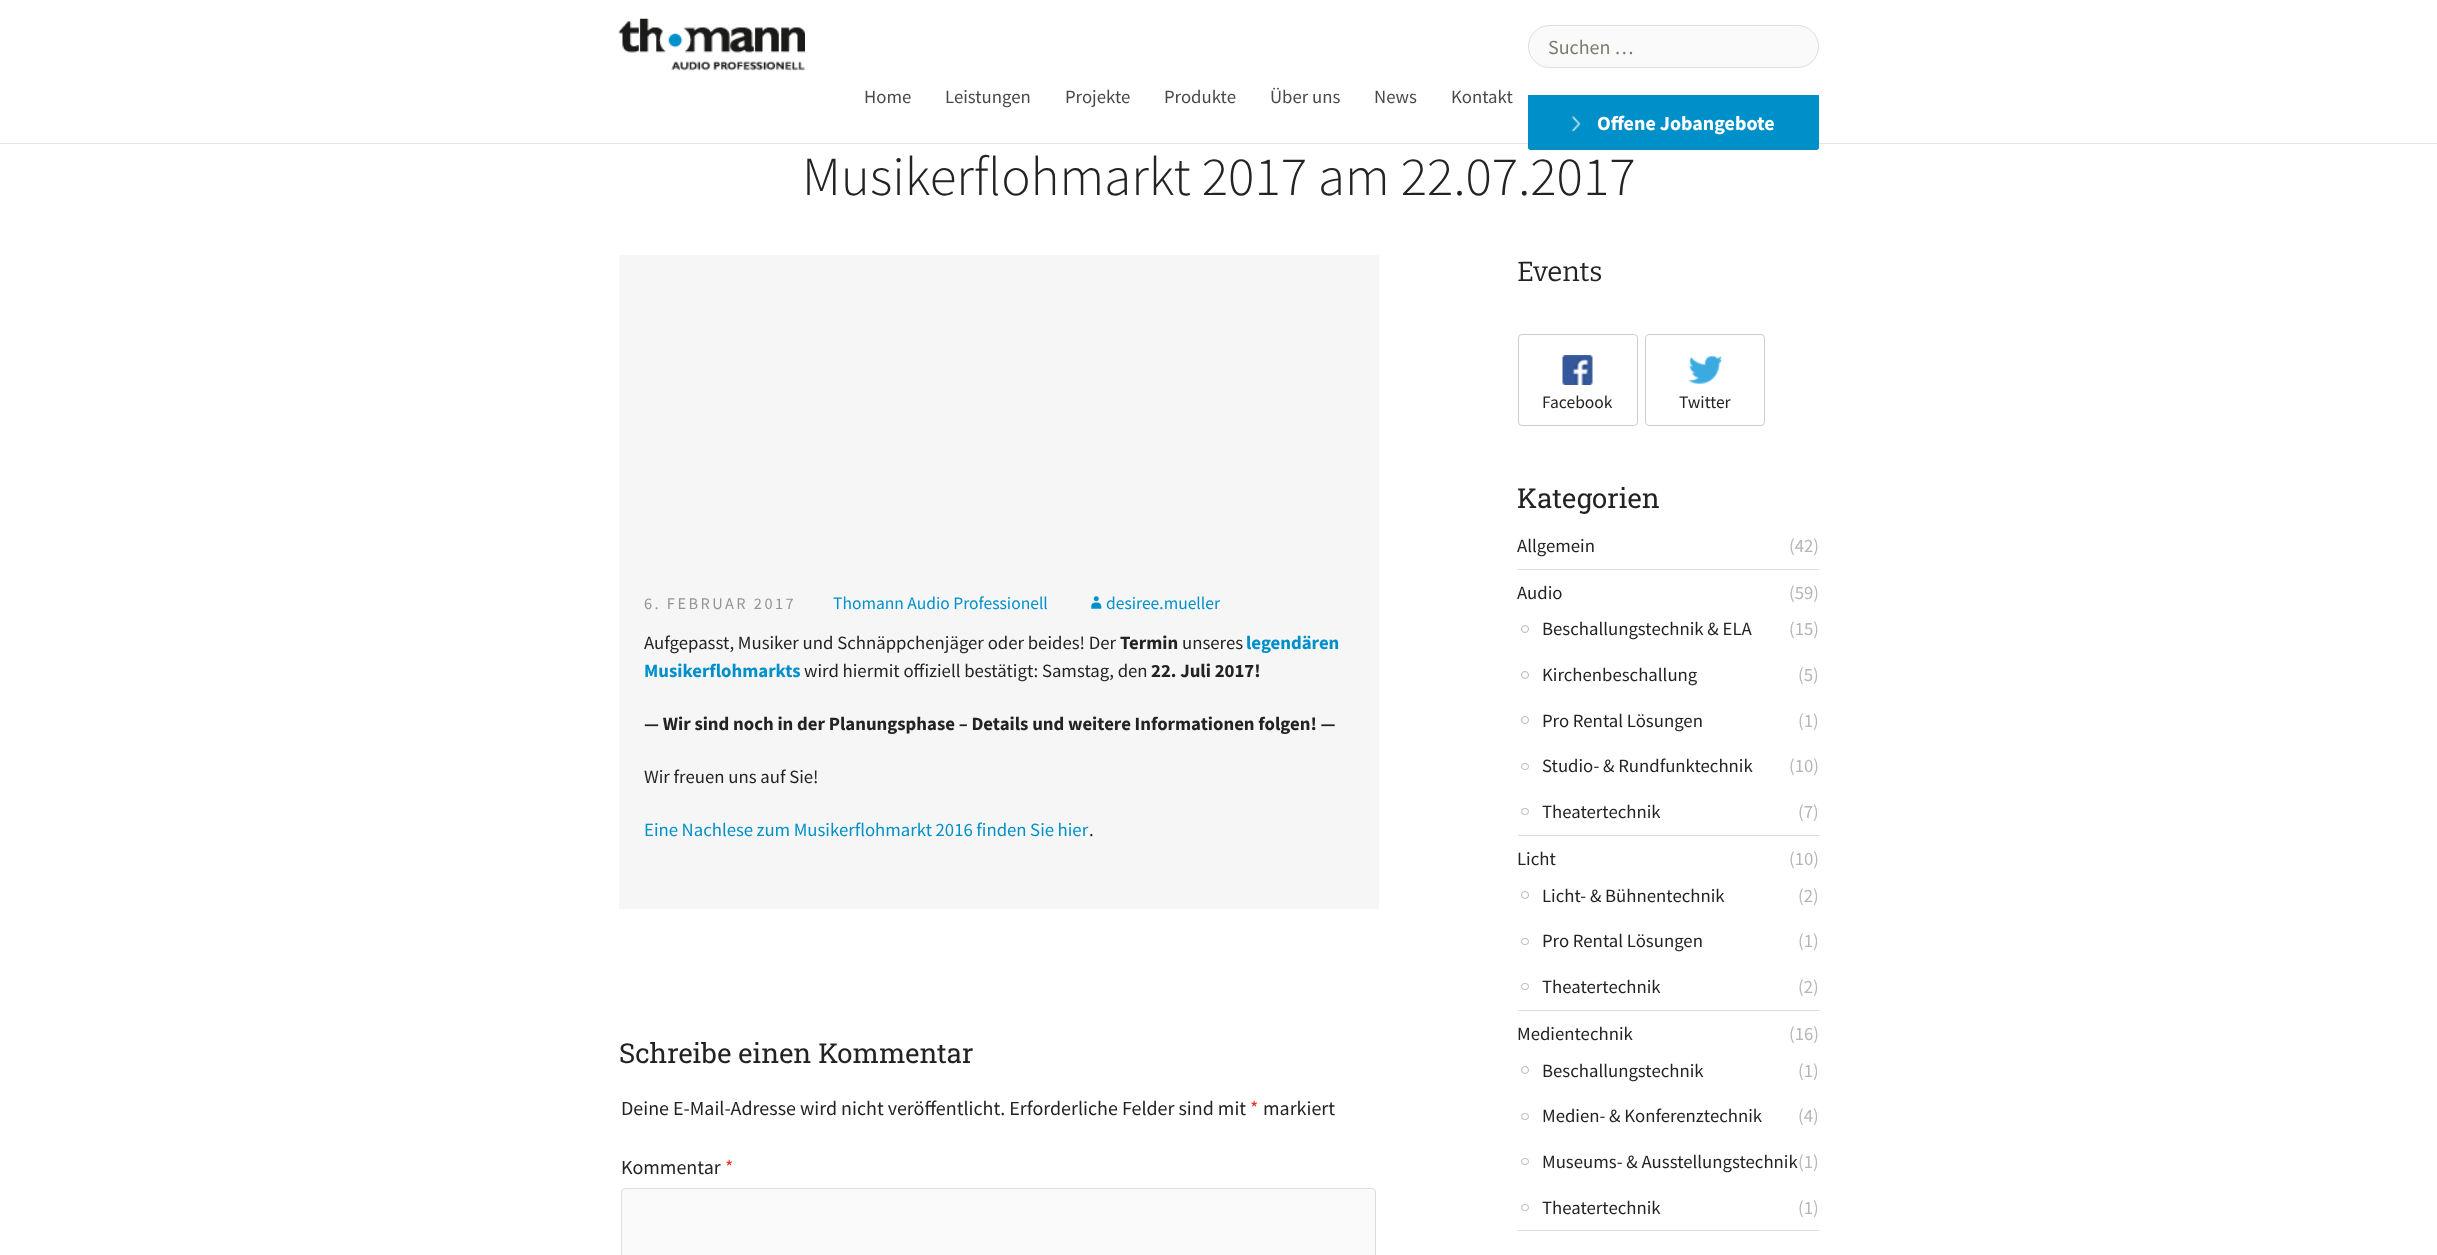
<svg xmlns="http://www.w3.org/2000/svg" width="2437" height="1255">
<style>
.a{font:18.75px Source Sans Pro;fill:#494949}
.b{font:20px Source Sans Pro;fill:#7d7b6d}
.c{font:bold 20px Source Sans Pro;fill:#fff}
.d{font:300 55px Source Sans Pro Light;fill:#232323}
.e{font:16.25px Source Sans Pro;letter-spacing:2.5px;fill:#949494}
.f{font:17.5px Source Sans Pro;fill:#0090c9}
.g{font:18.75px Source Sans Pro;fill:#232323}
.h{font:bold 18.75px Source Sans Pro;fill:#232323}
.i{font:bold 18.75px Source Sans Pro;fill:#0090c9}
.j{font:18.75px Source Sans Pro;fill:#0090c9}
.k{font:27.5px Roboto Slab;fill:#232323}
.l{font:20px Source Sans Pro;fill:#232323}
.m{font:20px Source Sans Pro;fill:#ed331c}
.n{font:27.5px Bitter;fill:#232323}
.o{font:17.5px Source Sans Pro;fill:#232323}
.p{font:18.75px Source Sans Pro;fill:#b6b6b6}
</style>
<rect width="100%" height="100%" fill="#fff"/>
<path fill="#e5e5e5" d="M0 143h2437v1H0z"/>
<image href="1.png" x="618" y="18" width="187" height="53"/>
<rect fill="#fafafa" stroke="#ddd" x="1528.5" y="25.5" width="290" height="42" rx="21"/>
<path fill="#0090c9" d="M1528 95h291v52.5c0 1.5-1 2.5-2.5 2.5h-286c-1.5 0-2.5-1-2.5-2.5z"/>
<image href="2.png" x="1571" y="116" width="10" height="16"/>
<path fill="#f6f6f6" d="M619 255h760v654H619z"/>
<image href="3.png" x="1091" y="596" width="11" height="13"/>
<rect fill="#fafafa" stroke="#ddd" x="621.5" y="1188.5" width="754" height="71" rx="3.5"/>
<image href="4.png" x="1562" y="355" width="31" height="30"/>
<rect fill="none" stroke="#cdcdcd" x="1518.5" y="334.5" width="119" height="91" rx="3.5"/>
<image href="5.png" x="1688" y="356" width="34" height="28"/>
<rect fill="none" stroke="#cdcdcd" x="1645.5" y="334.5" width="119" height="91" rx="3.5"/>
<path fill="#ddd" d="M1518 569h301v1H1518z"/>
<path fill="#ddd" d="M1518 835h301v1H1518z"/>
<circle fill="none" stroke="#b6b6b6" cx="1525" cy="629" r="3.5"/>
<circle fill="none" stroke="#b6b6b6" cx="1525" cy="675" r="3.5"/>
<circle fill="none" stroke="#b6b6b6" cx="1525" cy="720" r="3.5"/>
<rect fill="none" stroke="#b6b6b6" x="1521.5" y="763.5" width="7" height="6" rx="3"/>
<rect fill="none" stroke="#b6b6b6" x="1521.5" y="808.5" width="7" height="6" rx="3"/>
<path fill="#ddd" d="M1518 1010h301v1H1518z"/>
<circle fill="none" stroke="#b6b6b6" cx="1525" cy="895" r="3.5"/>
<rect fill="none" stroke="#b6b6b6" x="1521.5" y="938.5" width="7" height="6" rx="3"/>
<rect fill="none" stroke="#b6b6b6" x="1521.5" y="983.5" width="7" height="6" rx="3"/>
<path fill="#ddd" d="M1518 1230h301v1H1518z"/>
<circle fill="none" stroke="#b6b6b6" cx="1525" cy="1070" r="3.5"/>
<rect fill="none" stroke="#b6b6b6" x="1521.5" y="1113.5" width="7" height="6" rx="3"/>
<rect fill="none" stroke="#b6b6b6" x="1521.5" y="1158.5" width="7" height="6" rx="3"/>
<rect fill="none" stroke="#b6b6b6" x="1521.5" y="1204.5" width="7" height="6" rx="3"/>
<text class="a" x="864" y="103">Home</text>
<text class="a" x="945" y="103">Leistungen</text>
<text class="a" x="1065" y="103">Projekte</text>
<text class="a" x="1164" y="103">Produkte</text>
<text class="a" x="1270" y="103">Über uns</text>
<text class="a" x="1374" y="103">News</text>
<text class="a" x="1451" y="103">Kontakt</text>
<text class="b" x="1548" y="54">Suchen …</text>
<text class="c" x="1597" y="130">Offene Jobangebote</text>
<text class="d" x="802" y="195">Musikerflohmarkt 2017 am 22.07.2017</text>
<text class="e" x="644" y="609">6. FEBRUAR 2017</text>
<text class="f" x="833" y="609">Thomann Audio Professionell</text>
<text class="f" x="1106" y="609">desiree.mueller</text>
<text class="g" x="644" y="649">Aufgepasst, Musiker und Schnäppchenjäger oder beides! Der</text>
<text class="h" x="1120" y="649">Termin</text>
<text class="g" x="1182" y="649">unseres</text>
<text class="i" x="1246" y="649">legendären</text>
<text class="i" x="644" y="677">Musikerflohmarkts</text>
<text class="g" x="804" y="677">wird hiermit offiziell bestätigt: Samstag, den</text>
<text class="h" x="1151" y="677">22. Juli 2017!</text>
<text class="h" x="644" y="730">— Wir sind noch in der Planungsphase – Details und weitere Informationen folgen! —</text>
<text class="g" x="644" y="783">Wir freuen uns auf Sie!</text>
<text class="j" x="644" y="836" word-spacing="-0.25">Eine Nachlese zum Musikerflohmarkt 2016 finden Sie hier</text>
<text class="g" x="1089" y="836">.</text>
<text class="k" x="619" y="1063">Schreibe einen Kommentar</text>
<text class="l" x="621" y="1115">Deine E-Mail-Adresse wird nicht veröffentlicht. Erforderliche Felder sind mit</text>
<text class="m" x="1250" y="1115">*</text>
<text class="l" x="1263" y="1115">markiert</text>
<text class="l" x="621" y="1174">Kommentar</text>
<text class="m" x="725" y="1174">*</text>
<text class="n" x="1517" y="281">Events</text>
<text class="o" x="1542" y="408">Facebook</text>
<text class="o" x="1679" y="408">Twitter</text>
<text class="k" x="1517" y="508">Kategorien</text>
<text class="g" x="1517" y="552">Allgemein</text>
<text class="p" x="1789" y="552">(42)</text>
<text class="g" x="1517" y="599">Audio</text>
<text class="p" x="1789" y="599">(59)</text>
<text class="g" x="1542" y="635">Beschallungstechnik &amp; ELA</text>
<text class="p" x="1789" y="635">(15)</text>
<text class="g" x="1542" y="681">Kirchenbeschallung</text>
<text class="p" x="1798" y="681">(5)</text>
<text class="g" x="1542" y="727">Pro Rental Lösungen</text>
<text class="p" x="1798" y="727">(1)</text>
<text class="g" x="1542" y="772">Studio- &amp; Rundfunktechnik</text>
<text class="p" x="1789" y="772">(10)</text>
<text class="g" x="1542" y="818">Theatertechnik</text>
<text class="p" x="1798" y="818">(7)</text>
<text class="g" x="1517" y="865">Licht</text>
<text class="p" x="1789" y="865">(10)</text>
<text class="g" x="1542" y="902">Licht- &amp; Bühnentechnik</text>
<text class="p" x="1798" y="902">(2)</text>
<text class="g" x="1542" y="947">Pro Rental Lösungen</text>
<text class="p" x="1798" y="947">(1)</text>
<text class="g" x="1542" y="993">Theatertechnik</text>
<text class="p" x="1798" y="993">(2)</text>
<text class="g" x="1517" y="1040">Medientechnik</text>
<text class="p" x="1789" y="1040">(16)</text>
<text class="g" x="1542" y="1077">Beschallungstechnik</text>
<text class="p" x="1798" y="1077">(1)</text>
<text class="g" x="1542" y="1122">Medien- &amp; Konferenztechnik</text>
<text class="p" x="1798" y="1122">(4)</text>
<text class="g" x="1542" y="1168">Museums- &amp; Ausstellungstechnik</text>
<text class="p" x="1798" y="1168">(1)</text>
<text class="g" x="1542" y="1214">Theatertechnik</text>
<text class="p" x="1798" y="1214">(1)</text>
</svg>
